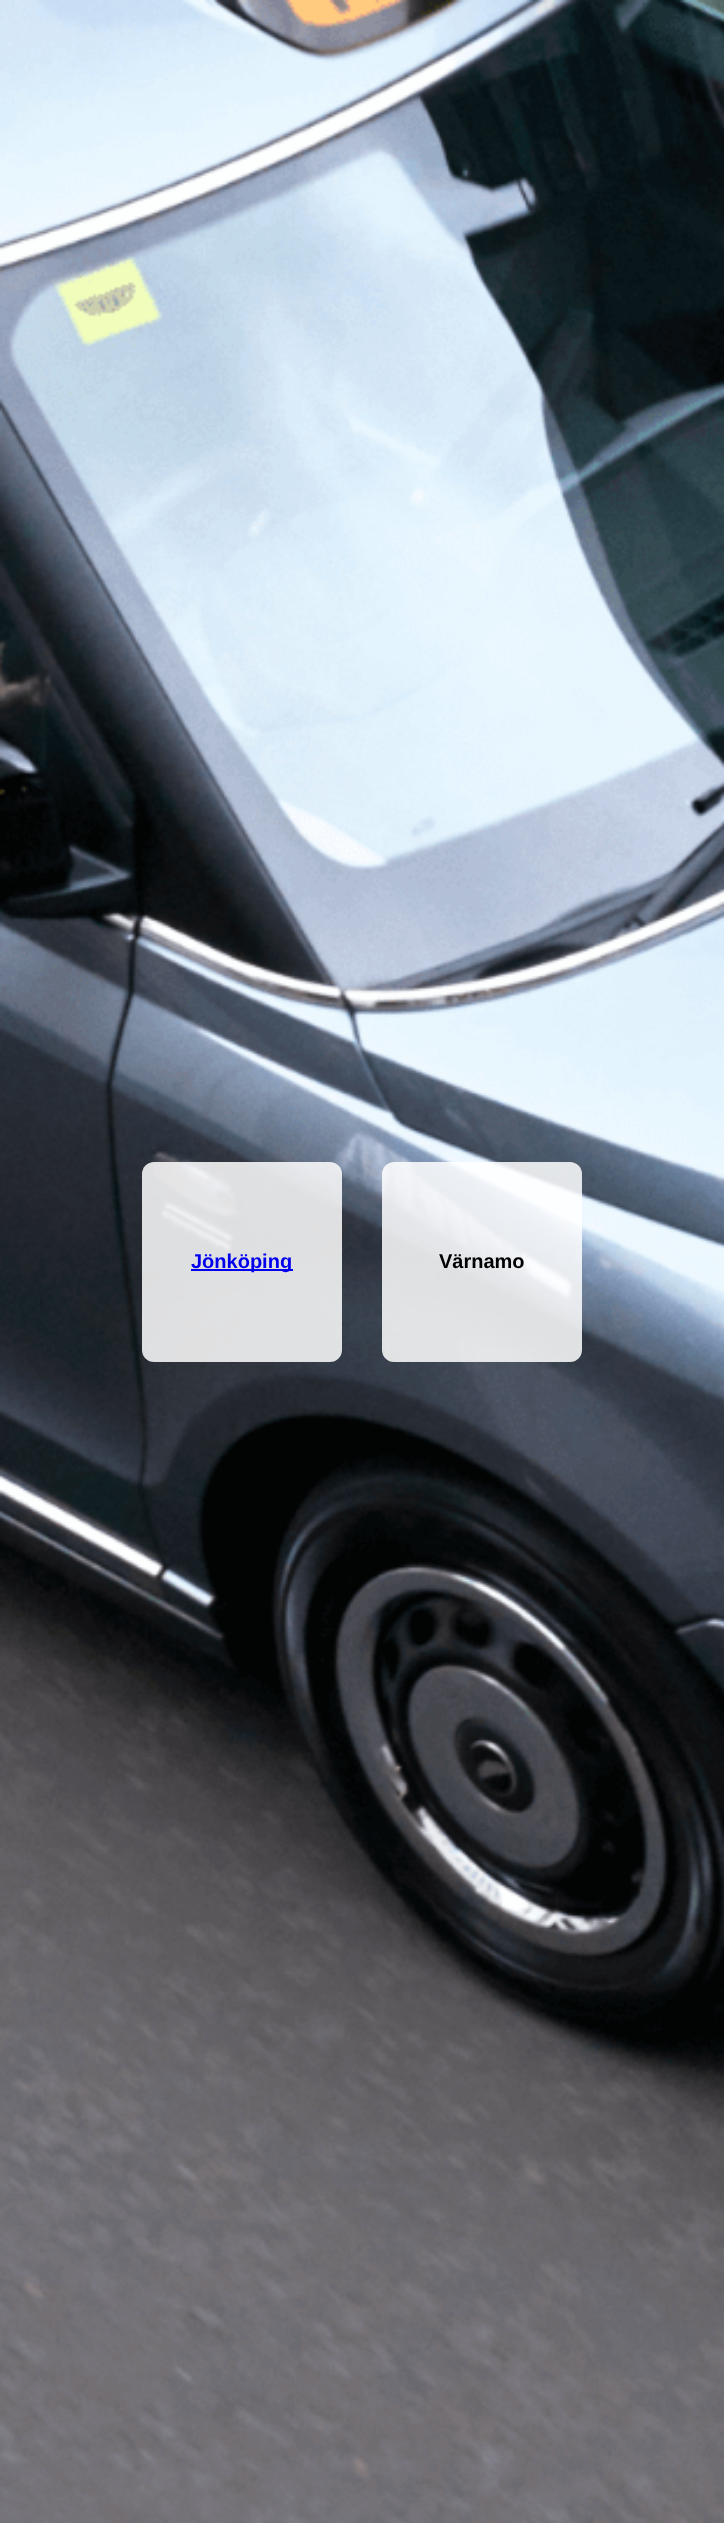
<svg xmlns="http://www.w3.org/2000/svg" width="724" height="2523">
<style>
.a{font:bold 20px Liberation Sans;fill:#00e}
.b{font:bold 20px Liberation Sans;fill:#000}
</style>
<rect width="100%" height="100%" fill="#fff"/>
<image href="1.png" x="0" y="0" width="724" height="2523"/>
<rect fill="#ffffffd9" x="142" y="1162" width="200" height="200" rx="12"/>
<path fill="#00e" d="M191 1269h102v2H191z"/>
<rect fill="#ffffffd9" x="382" y="1162" width="200" height="200" rx="12"/>
<text class="a" x="191" y="1268">Jönköping</text>
<text class="b" x="439" y="1268">Värnamo</text>
</svg>
